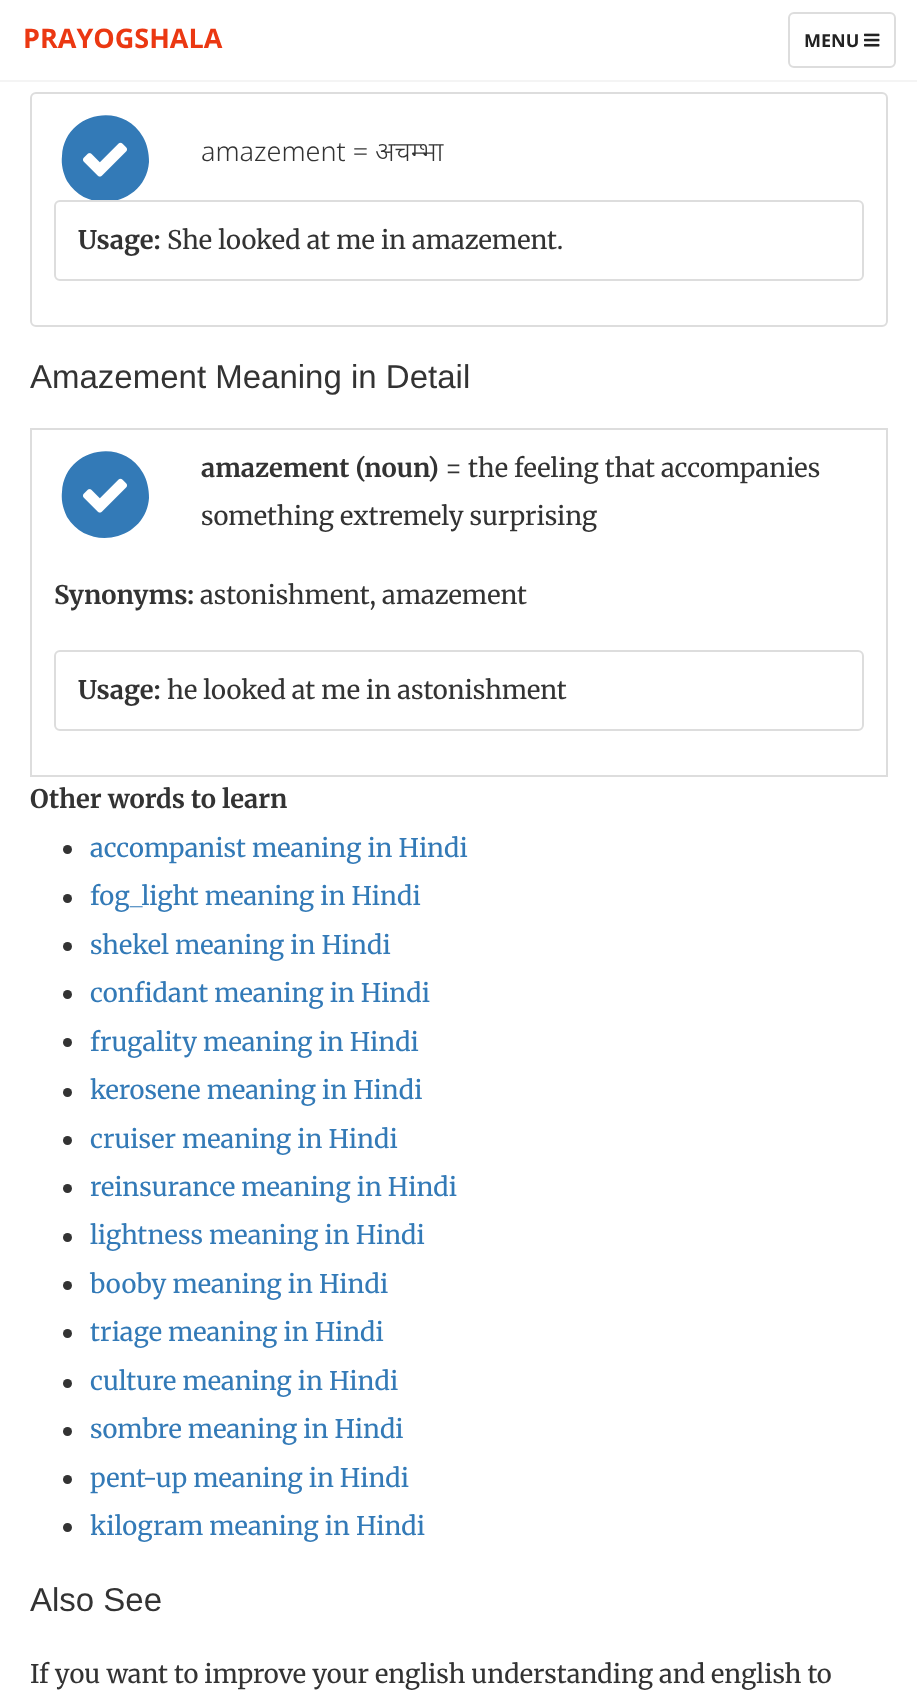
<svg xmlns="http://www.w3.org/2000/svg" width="917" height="1690">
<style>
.a{font:bold 27px Open Sans;fill:#eb3812}
.b{font:bold 18px Open Sans;fill:#222}
.c{font:300 27px Noto Sans;fill:#333}
.d{font:bold 25.5px Merriweather;fill:#333}
.e{font:25.5px Merriweather;fill:#333}
.f{font:33px Liberation Sans;fill:#333}
.g{font:25.5px Merriweather;fill:#337ab7}
</style>
<rect width="100%" height="100%" fill="#fff"/>
<path fill="#f4f4f4" d="M0 80h917v2H0z"/>
<rect fill="none" stroke="#ddd" stroke-width="2" x="789" y="13" width="106" height="54" rx="5"/>
<image href="1.png" x="864" y="33" width="16" height="14"/>
<rect fill="none" stroke="#ddd" stroke-width="2" x="31" y="93" width="856" height="233" rx="5"/>
<path fill="#337ab7" d="M143 137c4 7 6 16 6 25c-3 42-60 55-82 19c-4-8-6-17-5-25c2-43 60-56 81-19z"/>
<image href="2.png" x="83" y="142" width="44" height="35"/>
<rect fill="#fff" stroke="#ddd" stroke-width="2" x="55" y="201" width="808" height="79" rx="5"/>
<path fill="none" stroke="#ddd" stroke-width="2" d="M31 429h856v347H31z"/>
<path fill="#337ab7" d="M143 473c4 7 6 16 6 25c-3 42-60 55-82 19c-4-8-6-17-5-25c2-43 60-56 81-19z"/>
<image href="2.png" x="83" y="478" width="44" height="35"/>
<rect fill="none" stroke="#ddd" stroke-width="2" x="55" y="651" width="808" height="79" rx="5"/>
<circle fill="#333" cx="67.5" cy="849.5" r="4.5"/>
<circle fill="#333" cx="67.5" cy="898.5" r="4.5"/>
<circle fill="#333" cx="67.5" cy="946.5" r="4.5"/>
<circle fill="#333" cx="67.5" cy="994.5" r="4.5"/>
<circle fill="#333" cx="67.5" cy="1042.5" r="4.5"/>
<circle fill="#333" cx="67.5" cy="1092.5" r="4.5"/>
<circle fill="#333" cx="67.5" cy="1140.5" r="4.5"/>
<circle fill="#333" cx="67.5" cy="1188.5" r="4.5"/>
<circle fill="#333" cx="67.5" cy="1237.5" r="4.5"/>
<circle fill="#333" cx="67.5" cy="1285.5" r="4.5"/>
<circle fill="#333" cx="67.5" cy="1333.5" r="4.5"/>
<circle fill="#333" cx="67.5" cy="1383.5" r="4.5"/>
<circle fill="#333" cx="67.5" cy="1431.5" r="4.5"/>
<circle fill="#333" cx="67.5" cy="1479.5" r="4.5"/>
<circle fill="#333" cx="67.5" cy="1527.5" r="4.5"/>
<text class="a" x="23" y="48">PRAYOGSHALA</text>
<text class="b" x="804" y="47">MENU</text>
<text class="c" x="201" y="161">amazement = अचम्भा</text>
<text class="d" x="78" y="249">Usage:</text>
<text class="e" x="167" y="249">She looked at me in amazement.</text>
<text class="f" x="30" y="388">Amazement Meaning in Detail</text>
<text class="d" x="201" y="477">amazement (noun)</text>
<text class="e" x="445" y="477">= the feeling that accompanies</text>
<text class="e" x="201" y="525">something extremely surprising</text>
<text class="d" x="54" y="604">Synonyms:</text>
<text class="e" x="200" y="604">astonishment, amazement</text>
<text class="d" x="78" y="699">Usage:</text>
<text class="e" x="167" y="699">he looked at me in astonishment</text>
<text class="d" x="30" y="808">Other words to learn</text>
<text class="g" x="90" y="857">accompanist meaning in Hindi</text>
<text class="g" x="90" y="905">fog_light meaning in Hindi</text>
<text class="g" x="90" y="954">shekel meaning in Hindi</text>
<text class="g" x="90" y="1002">confidant meaning in Hindi</text>
<text class="g" x="90" y="1051">frugality meaning in Hindi</text>
<text class="g" x="90" y="1099">kerosene meaning in Hindi</text>
<text class="g" x="90" y="1148">cruiser meaning in Hindi</text>
<text class="g" x="90" y="1196">reinsurance meaning in Hindi</text>
<text class="g" x="90" y="1244">lightness meaning in Hindi</text>
<text class="g" x="90" y="1293">booby meaning in Hindi</text>
<text class="g" x="90" y="1341">triage meaning in Hindi</text>
<text class="g" x="90" y="1390">culture meaning in Hindi</text>
<text class="g" x="90" y="1438">sombre meaning in Hindi</text>
<text class="g" x="90" y="1487">pent-up meaning in Hindi</text>
<text class="g" x="90" y="1535">kilogram meaning in Hindi</text>
<text class="f" x="30" y="1611">Also See</text>
<text class="e" x="30" y="1683">If you want to improve your english understanding and english to</text>
</svg>
